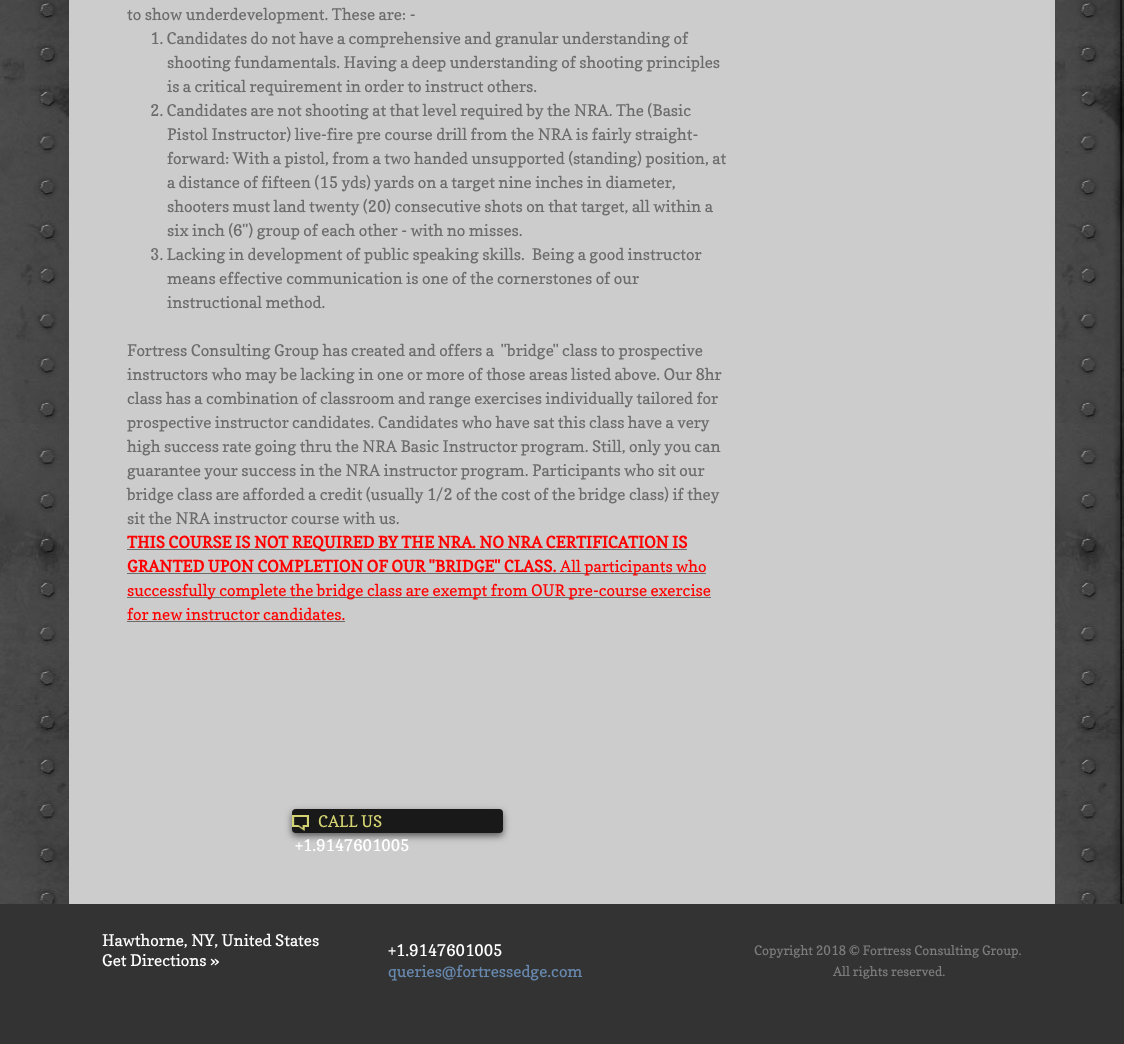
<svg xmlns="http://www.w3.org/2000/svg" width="1124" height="1044">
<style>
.a{font:16px Copse;fill:#6c6c6c}
.b{font:bold 16px Copse;fill:#f00}
.c{font:16px Copse;fill:#f00}
.d{font:16px Copse;fill:#d4d373}
.e{font:16px Copse;fill:#fff}
.f{font:16px Copse;fill:#6889af}
.g{font:13px Copse;fill:#7d7d7d}
</style>
<rect width="100%" height="100%" fill="#fff"/>
<image href="1.png" x="0" y="0" width="1124" height="904"/>
<path fill="#ccc" d="M69 0h986v904H69z"/>
<path fill="#6c6c6c" d="M127 549h560v1H127z"/>
<path fill="#6c6c6c" d="M127 573h579v1H127z"/>
<path fill="#6c6c6c" d="M127 597h584v1H127z"/>
<path fill="#6c6c6c" d="M127 621h218v1H127z"/>
<rect fill="#323232bf" filter="blur(3.5px)" x="292" y="812" width="211" height="24" rx="4"/>
<rect fill="#191919" x="292" y="809" width="211" height="24" rx="4"/>
<image href="2.png" x="292" y="815" width="17" height="16"/>
<path fill="#333" d="M0 904h1124v140H0z"/>
<text class="a" x="127" y="20">to show underdevelopment. These are: -</text>
<text class="a" x="150" y="44">1. Candidates do not have a comprehensive and granular understanding of</text>
<text class="a" x="167" y="68">shooting fundamentals. Having a deep understanding of shooting principles</text>
<text class="a" x="167" y="92">is a critical requirement in order to instruct others.</text>
<text class="a" x="150" y="116">2. Candidates are not shooting at that level required by the NRA. The (Basic</text>
<text class="a" x="167" y="140">Pistol Instructor) live-fire pre course drill from the NRA is fairly straight-</text>
<text class="a" x="167" y="164">forward: With a pistol, from a two handed unsupported (standing) position, at</text>
<text class="a" x="167" y="188">a distance of fifteen (15 yds) yards on a target nine inches in diameter,</text>
<text class="a" x="167" y="212">shooters must land twenty (20) consecutive shots on that target, all within a</text>
<text class="a" x="167" y="236">six inch (6") group of each other - with no misses.</text>
<text class="a" xml:space="preserve" x="150" y="260">3. Lacking in development of public speaking skills.  Being a good instructor</text>
<text class="a" x="167" y="284">means effective communication is one of the cornerstones of our</text>
<text class="a" x="167" y="308">instructional method.</text>
<text class="a" xml:space="preserve" x="127" y="356">Fortress Consulting Group has created and offers a  "bridge" class to prospective</text>
<text class="a" x="127" y="380">instructors who may be lacking in one or more of those areas listed above. Our 8hr</text>
<text class="a" x="127" y="404">class has a combination of classroom and range exercises individually tailored for</text>
<text class="a" x="127" y="428">prospective instructor candidates. Candidates who have sat this class have a very</text>
<text class="a" x="127" y="452">high success rate going thru the NRA Basic Instructor program. Still, only you can</text>
<text class="a" x="127" y="476">guarantee your success in the NRA instructor program. Participants who sit our</text>
<text class="a" x="127" y="500">bridge class are afforded a credit (usually 1/2 of the cost of the bridge class) if they</text>
<text class="a" x="127" y="524">sit the NRA instructor course with us.</text>
<text class="b" x="127" y="548">THIS COURSE IS NOT REQUIRED BY THE NRA. NO NRA CERTIFICATION IS</text>
<text class="b" x="127" y="572">GRANTED UPON COMPLETION OF OUR "BRIDGE" CLASS.</text>
<text class="c" x="560" y="572">All participants who</text>
<text class="c" x="127" y="596">successfully complete the bridge class are exempt from OUR pre-course exercise</text>
<text class="c" x="127" y="620">for new instructor candidates.</text>
<text class="d" x="318" y="827">CALL US</text>
<text class="e" x="295" y="851">+1.9147601005</text>
<text class="e" x="102" y="946">Hawthorne, NY, United States</text>
<text class="e" x="102" y="966">Get Directions »</text>
<text class="e" x="388" y="956">+1.9147601005</text>
<text class="f" x="388" y="977">queries@fortressedge.com</text>
<text class="g" x="754" y="955">Copyright 2018 © Fortress Consulting Group.</text>
<text class="g" x="833" y="976">All rights reserved.</text>
</svg>
